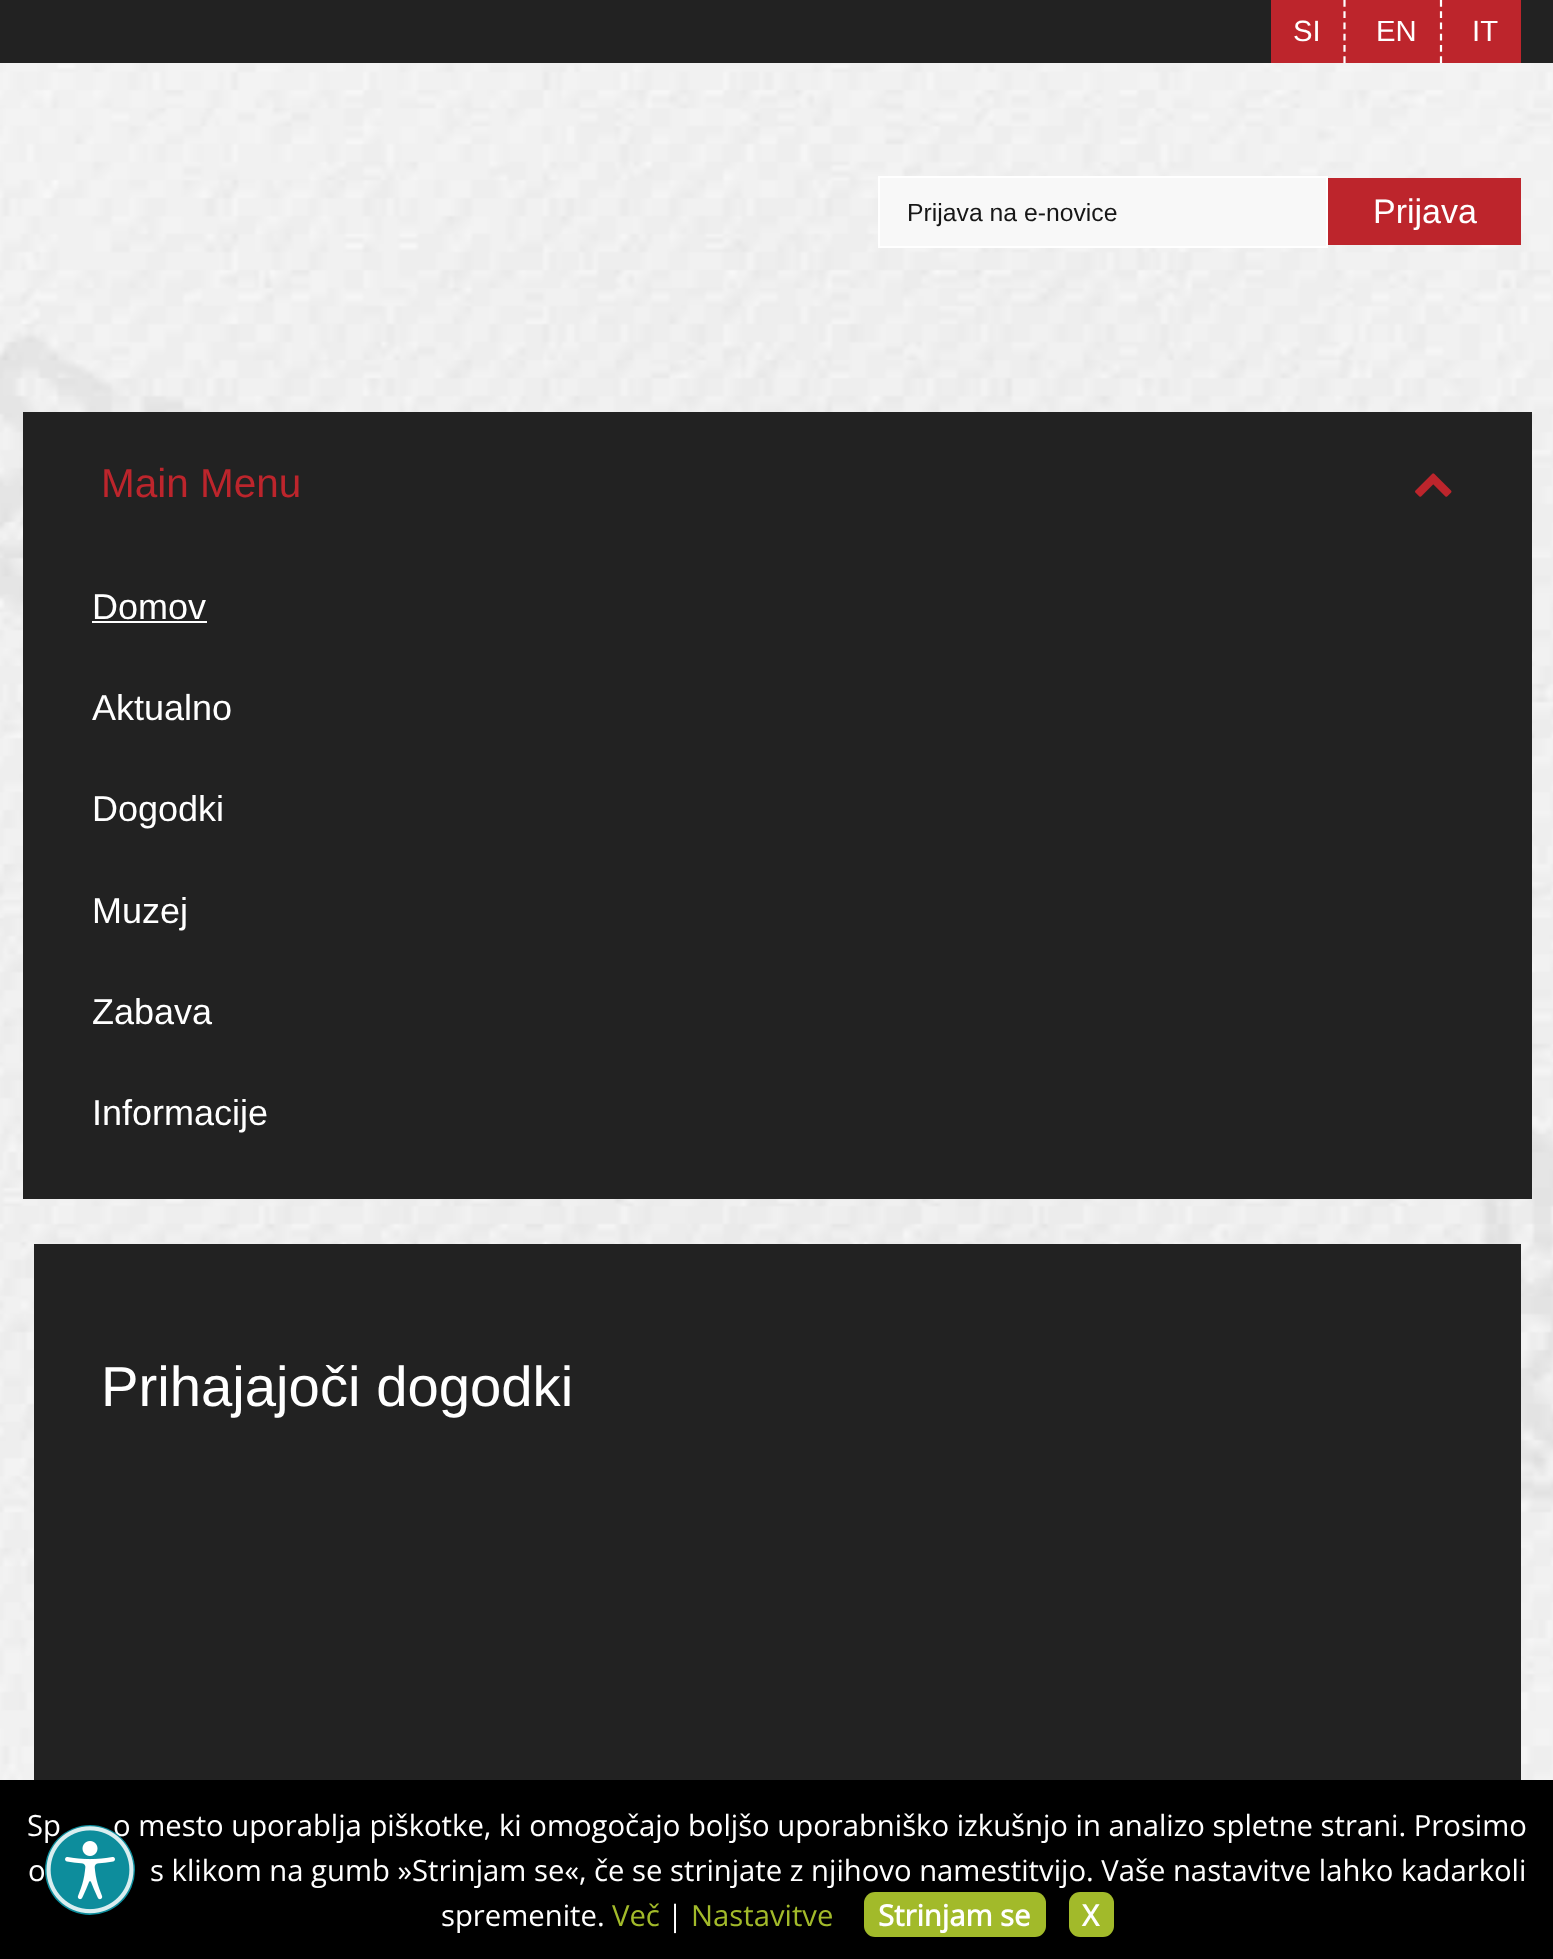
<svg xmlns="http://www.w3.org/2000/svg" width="1553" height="1959">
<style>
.a{font:29.25px Liberation Sans;fill:#fff}
.b{font:24.75px Liberation Sans;fill:#171717}
.c{font:34px Liberation Sans;fill:#fff}
.d{font:40.5px Liberation Sans;fill:#bd252c}
.e{font:36px Liberation Sans;fill:#fff}
.f{font:56.25px Liberation Sans;fill:#fff}
.g{font:29.25px Open Sans;fill:#fff}
.h{font:29.25px Open Sans;fill:#a2ba2a}
.i{font:bold 29.25px Open Sans;fill:#fff}
</style>
<rect width="100%" height="100%" fill="#fff"/>
<image href="1.png" x="0" y="63" width="1553" height="1717"/>
<path fill="#222" d="M0 0h1553v63H0z"/>
<path fill="#bd252c" d="M1271 0h250v63H1271z"/>
<path fill="none" stroke="#fff" stroke-width="2.2" stroke-dasharray="6.75 4.5" d="M1344.5 0v63"/>
<path fill="none" stroke="#fff" stroke-width="2.2" stroke-dasharray="6.75 4.5" d="M1441 0v63"/>
<path fill="#f8f8f8" stroke="#fff" stroke-width="2" d="M879 177h448v70H879z"/>
<path fill="#bd252c" d="M1328 178h193v67H1328z"/>
<path fill="#222" d="M23 412h1509v787H23z"/>
<image href="2.png" x="1415" y="473" width="37" height="24"/>
<path fill="#fff" d="M92 621h115v2H92z"/>
<path fill="#222" d="M34 1244h1487v536H34z"/>
<path fill="#000" d="M0 1780h1553v179H0z"/>
<rect fill="#a2ba2a" x="864" y="1892" width="182" height="45" rx="11"/>
<rect fill="#a2ba2a" x="1069" y="1892" width="45" height="45" rx="11"/>
<text class="a" x="1293" y="41">SI</text>
<text class="a" x="1376" y="41">EN</text>
<text class="a" x="1472" y="41">IT</text>
<text class="b" x="907" y="221">Prijava na e-novice</text>
<text class="c" x="1373" y="223">Prijava</text>
<text class="d" x="101" y="497">Main Menu</text>
<text class="e" x="92" y="619">Domov</text>
<text class="e" x="92" y="720">Aktualno</text>
<text class="e" x="92" y="821">Dogodki</text>
<text class="e" x="92" y="923">Muzej</text>
<text class="e" x="92" y="1024">Zabava</text>
<text class="e" x="92" y="1125">Informacije</text>
<text class="f" x="101" y="1406">Prihajajoči dogodki</text>
<text class="g" x="27" y="1836">Sp</text>
<text class="g" x="113" y="1836">o mesto uporablja piškotke, ki omogočajo boljšo uporabniško izkušnjo in analizo spletne strani. Prosimo</text>
<text class="g" x="28" y="1881">o</text>
<text class="g" x="150" y="1881">s klikom na gumb »Strinjam se«, če se strinjate z njihovo namestitvijo. Vaše nastavitve lahko kadarkoli</text>
<text class="g" x="441" y="1926">spremenite.</text>
<text class="h" x="612" y="1926">Več</text>
<text class="g" x="667" y="1926">|</text>
<text class="h" x="691" y="1926">Nastavitve</text>
<text class="i" x="878" y="1926">Strinjam se</text>
<text class="i" x="1082" y="1926">X</text>
<circle fill="#0d8d9c" cx="90" cy="1870" r="45"/>
<image href="3.png" x="46" y="1826" width="88" height="88"/>
</svg>
